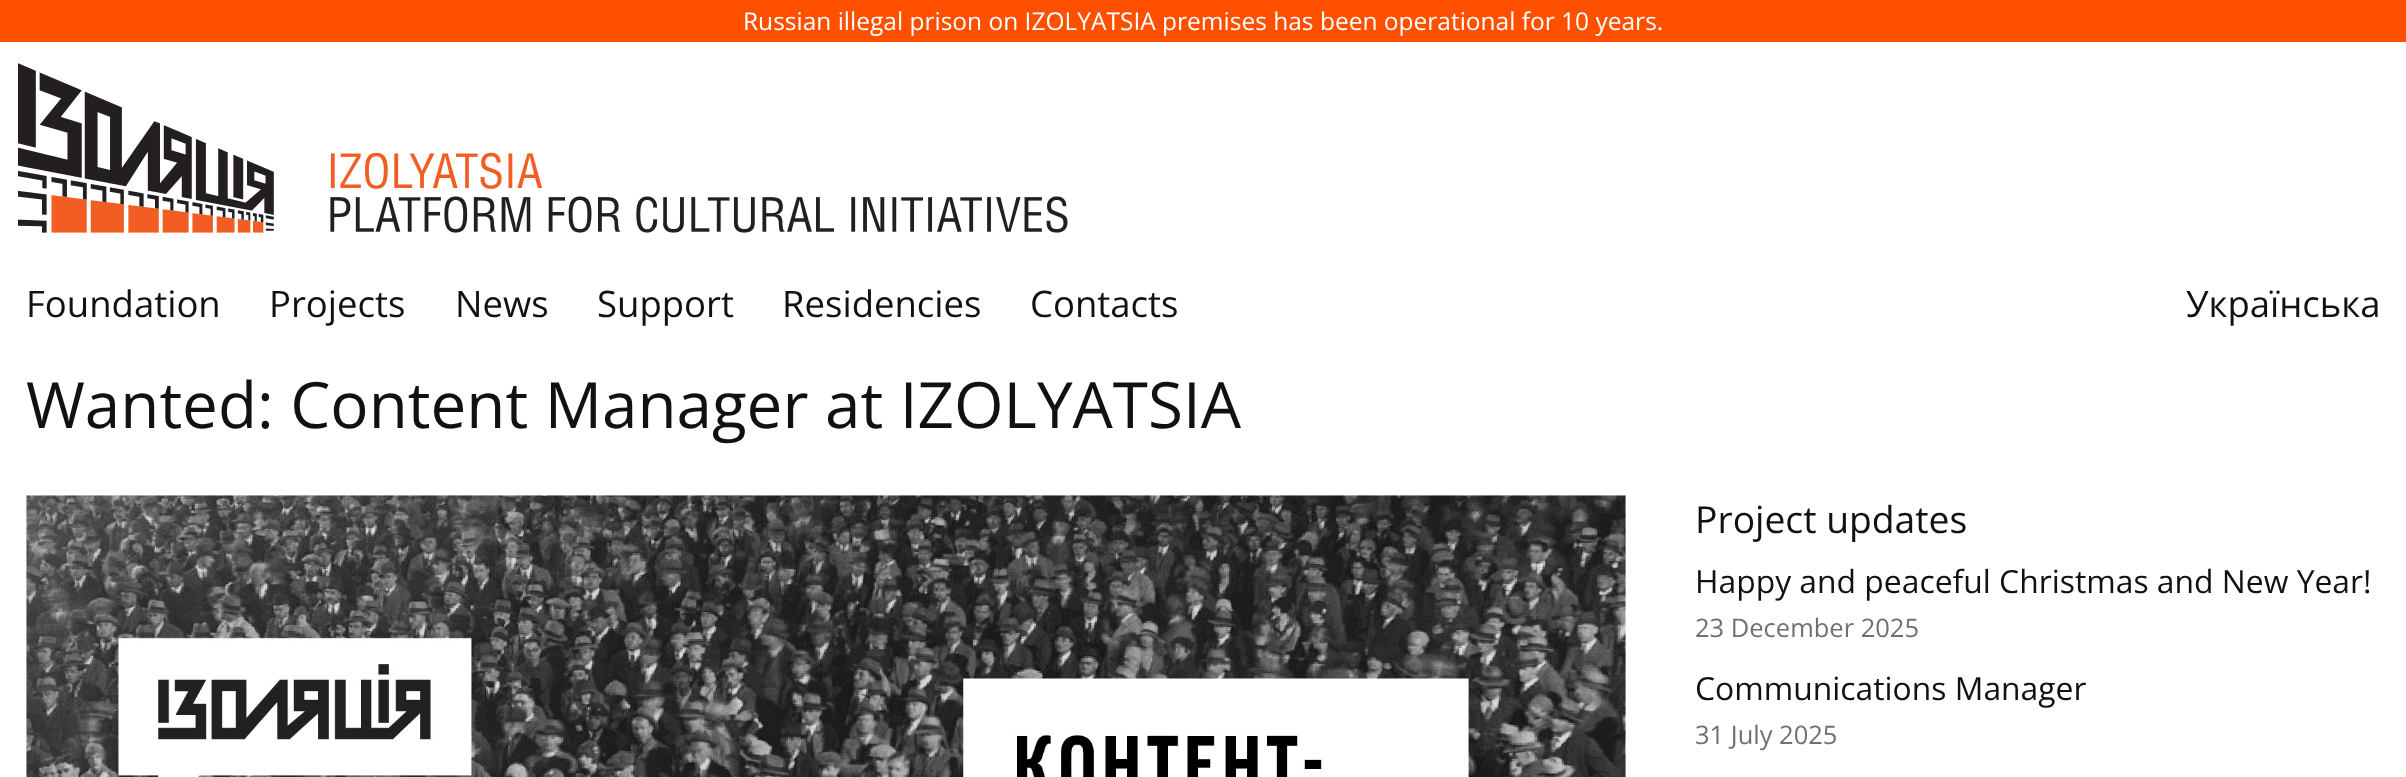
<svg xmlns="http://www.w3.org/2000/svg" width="2406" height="777">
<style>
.a{font:24.5px Open Sans;fill:#fff}
.b{font:36.5px Open Sans;fill:#111}
.c{font:63.75px Open Sans;fill:#111}
.d{font:37.25px Open Sans;fill:#111}
.e{font:31.85px Open Sans;fill:#111}
.f{font:25.5px Open Sans;fill:#707070}
</style>
<rect width="100%" height="100%" fill="#fff"/>
<path fill="#ff5000" d="M0 0h2406v42H0z"/>
<image href="1.png" x="18" y="63" width="1050" height="170"/>
<image href="2.png" x="26" y="495" width="1600" height="282"/>
<text class="a" x="743" y="30">Russian illegal prison on IZOLYATSIA premises has been operational for 10 years.</text>
<text class="b" x="26" y="317">Foundation</text>
<text class="b" x="269" y="317">Projects</text>
<text class="b" x="455" y="317">News</text>
<text class="b" x="597" y="317">Support</text>
<text class="b" x="782" y="317">Residencies</text>
<text class="b" x="1030" y="317">Contacts</text>
<text class="b" x="2186" y="317">Українська</text>
<text class="c" x="26" y="428">Wanted: Content Manager at IZOLYATSIA</text>
<text class="d" x="1695" y="533">Project updates</text>
<text class="e" x="1695" y="593">Happy and peaceful Christmas and New Year!</text>
<text class="f" x="1695" y="637">23 December 2025</text>
<text class="e" x="1695" y="700">Communications Manager</text>
<text class="f" x="1695" y="744">31 July 2025</text>
</svg>
